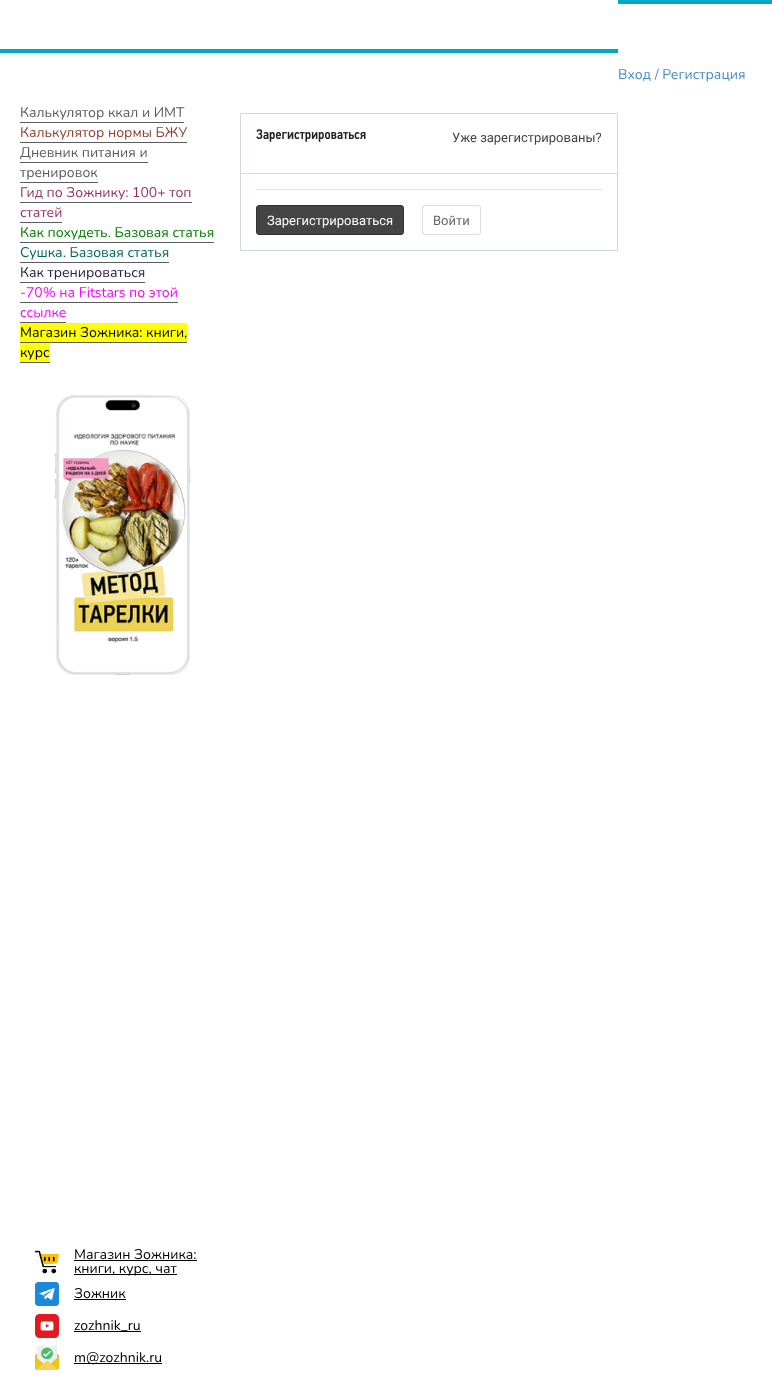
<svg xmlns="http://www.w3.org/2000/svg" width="772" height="1400">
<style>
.a{font:14px Nunito;fill:#428bca}
.b{font:14px Nunito;fill:#5c5c5c}
.c{font:14px Nunito;fill:#903f30}
.d{font:14px Nunito;fill:#98315f}
.e{font:14px Nunito;fill:#008000}
.f{font:14px Nunito;fill:#006756}
.g{font:14px Nunito;fill:#2a1647}
.h{font:14px Nunito;fill:#f0f}
.i{font:14px Nunito;fill:#000}
.j{font:13px Roboto;fill:#444}
.k{font:13px Roboto;fill:#fff}
.l{font:13px Roboto;fill:#666}
</style>
<rect width="100%" height="100%" fill="#fff"/>
<path fill="#00a8c6" d="M618 0h154v4H618z"/>
<path fill="#00a8c6" d="M0 49h618v4H0z"/>
<path fill="#5c5c5c" d="M20 122h164v1H20z"/>
<path fill="#5c5c5c" d="M20 142h167v1H20z"/>
<path fill="#5c5c5c" d="M20 162h128v1H20z"/>
<path fill="#5c5c5c" d="M20 182h78v1H20z"/>
<path fill="#5c5c5c" d="M20 202h172v1H20z"/>
<path fill="#5c5c5c" d="M20 222h42v1H20z"/>
<path fill="#5c5c5c" d="M20 242h194v1H20z"/>
<path fill="#5c5c5c" d="M20 262h149v1H20z"/>
<path fill="#5c5c5c" d="M20 282h125v1H20z"/>
<path fill="#5c5c5c" d="M20 302h158v1H20z"/>
<path fill="#5c5c5c" d="M20 322h46v1H20z"/>
<path fill="#5c5c5c" d="M20 342h167v1H20z"/>
<path fill="#ff0" d="M20 323h167v19H20z"/>
<path fill="#5c5c5c" d="M20 362h30v1H20z"/>
<path fill="#ff0" d="M20 343h30v19H20z"/>
<image href="1.png" x="54" y="394" width="137" height="281"/>
<image href="2.png" x="35" y="1250" width="24" height="24"/>
<path fill="#000" d="M74 1260h123v1H74z"/>
<path fill="#000" d="M74 1274h103v1H74z"/>
<image href="3.png" x="35" y="1282" width="24" height="24"/>
<path fill="#000" d="M74 1299h52v1H74z"/>
<image href="4.png" x="35" y="1314" width="24" height="24"/>
<path fill="#000" d="M74 1331h67v1H74z"/>
<image href="5.png" x="35" y="1346" width="24" height="24"/>
<path fill="#000" d="M74 1363h88v1H74z"/>
<path fill="none" stroke="#d1d7dc" d="M240.5 113.5h377v137H240.5z"/>
<path fill="#d9d9d9" d="M241 173h376v1H241z"/>
<image href="6.png" x="256" y="129" width="110" height="13"/>
<path fill="#e5e5e5" d="M256 189h346v1H256z"/>
<rect fill="#444" stroke="#333" x="256.5" y="205.5" width="147" height="29" rx="2.5"/>
<rect fill="none" stroke="#ddd" x="422.5" y="205.5" width="58" height="29" rx="2.5"/>
<text class="a" x="618" y="79">Вход / Регистрация</text>
<text class="b" x="20" y="117">Калькулятор ккал и ИМТ</text>
<text class="c" x="20" y="137">Калькулятор нормы БЖУ</text>
<text class="b" x="20" y="157">Дневник питания и</text>
<text class="b" x="20" y="177">тренировок</text>
<text class="d" x="20" y="197">Гид по Зожнику: 100+ топ</text>
<text class="d" x="20" y="217">статей</text>
<text class="e" x="20" y="237">Как похудеть. Базовая статья</text>
<text class="f" x="20" y="257">Сушка. Базовая статья</text>
<text class="g" x="20" y="277">Как тренироваться</text>
<text class="h" x="20" y="297">-70% на Fitstars по этой</text>
<text class="h" x="20" y="317">ссылке</text>
<text class="i" x="20" y="337">Магазин Зожника: книги,</text>
<text class="i" x="20" y="357">курс</text>
<text class="i" x="74" y="1259">Магазин Зожника:</text>
<text class="i" x="74" y="1273">книги, курс, чат</text>
<text class="i" x="74" y="1298">Зожник</text>
<text class="i" x="74" y="1330">zozhnik_ru</text>
<text class="i" x="74" y="1362">m@zozhnik.ru</text>
<text class="j" x="452" y="142">Уже зарегистрированы?</text>
<text class="k" x="267" y="225">Зарегистрироваться</text>
<text class="l" x="433" y="225">Войти</text>
</svg>
